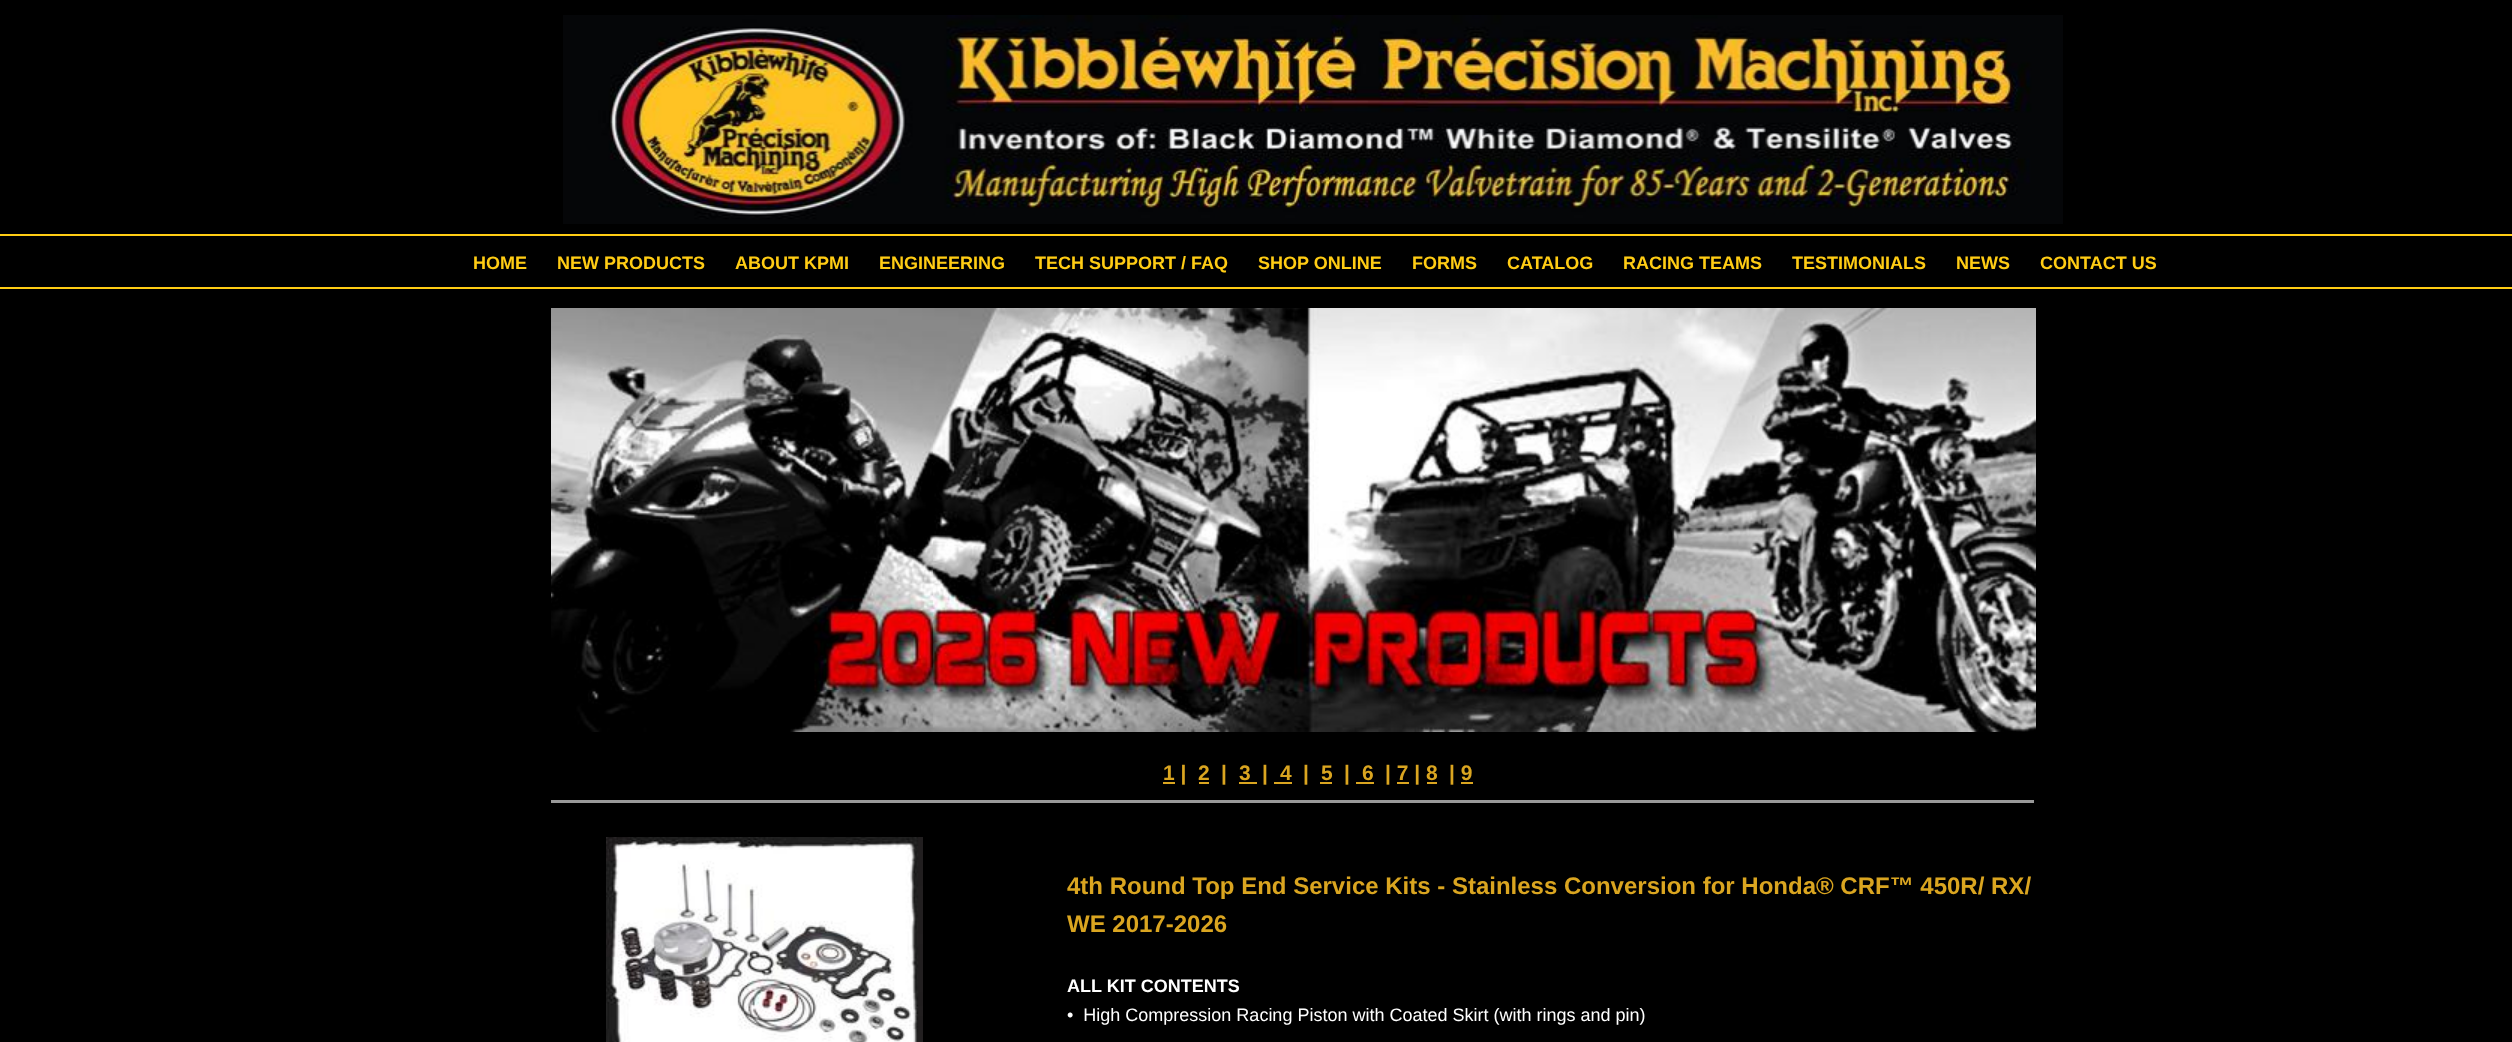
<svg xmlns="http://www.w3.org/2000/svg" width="2512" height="1042">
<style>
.a{font:bold 18px Liberation Sans;fill:#ffcc14}
.b{font:bold 21px Liberation Sans;fill:#daa520}
.c{font:bold 24px Liberation Sans;fill:#daa520}
.d{font:bold 18px Liberation Sans;fill:#fff}
.e{font:18px Liberation Sans;fill:#fff}
</style>
<rect width="100%" height="100%" fill="#000"/>
<image href="1.png" x="563" y="15" width="1500" height="209"/>
<path fill="#ffcc14" d="M0 234h2512v2H0z"/>
<path fill="#ffcc14" d="M0 287h2512v2H0z"/>
<image href="2.png" x="551" y="308" width="1485" height="424"/>
<path fill="#daa520" d="M1163 782h12v2H1163z"/>
<path fill="#daa520" d="M1199 782h10v2H1199z"/>
<path fill="#daa520" d="M1239 782h18v2H1239z"/>
<path fill="#daa520" d="M1274 782h18v2H1274z"/>
<path fill="#daa520" d="M1320 782h12v2H1320z"/>
<path fill="#daa520" d="M1356 782h18v2H1356z"/>
<path fill="#daa520" d="M1397 782h12v2H1397z"/>
<path fill="#daa520" d="M1427 782h10v2H1427z"/>
<path fill="#daa520" d="M1461 782h12v2H1461z"/>
<path fill="#999" d="M551 800h1483v3H551z"/>
<image href="3.png" x="606" y="837" width="317" height="205"/>
<text class="a" x="473" y="269">HOME</text>
<text class="a" x="557" y="269">NEW PRODUCTS</text>
<text class="a" x="735" y="269">ABOUT KPMI</text>
<text class="a" x="879" y="269">ENGINEERING</text>
<text class="a" x="1035" y="269">TECH SUPPORT / FAQ</text>
<text class="a" x="1258" y="269">SHOP ONLINE</text>
<text class="a" x="1412" y="269">FORMS</text>
<text class="a" x="1507" y="269">CATALOG</text>
<text class="a" x="1623" y="269">RACING TEAMS</text>
<text class="a" x="1792" y="269">TESTIMONIALS</text>
<text class="a" x="1956" y="269">NEWS</text>
<text class="a" x="2040" y="269">CONTACT US</text>
<text class="b" x="1163" y="780">1 |</text>
<text class="b" x="1198" y="780">2</text>
<text class="b" x="1221" y="780">|</text>
<text class="b" x="1239" y="780">3</text>
<text class="b" x="1262" y="780">|</text>
<text class="b" x="1280" y="780">4</text>
<text class="b" x="1303" y="780">|</text>
<text class="b" x="1321" y="780">5</text>
<text class="b" x="1344" y="780">|</text>
<text class="b" x="1362" y="780">6</text>
<text class="b" x="1385" y="780">| 7 | 8</text>
<text class="b" x="1449" y="780">| 9</text>
<text class="c" x="1067" y="894">4th Round Top End Service Kits - Stainless Conversion for Honda® CRF™ 450R/ RX/</text>
<text class="c" x="1067" y="932">WE 2017-2026</text>
<text class="d" x="1067" y="992">ALL KIT CONTENTS</text>
<text class="e" xml:space="preserve" x="1067" y="1021">•  High Compression Racing Piston with Coated Skirt (with rings and pin)</text>
</svg>
